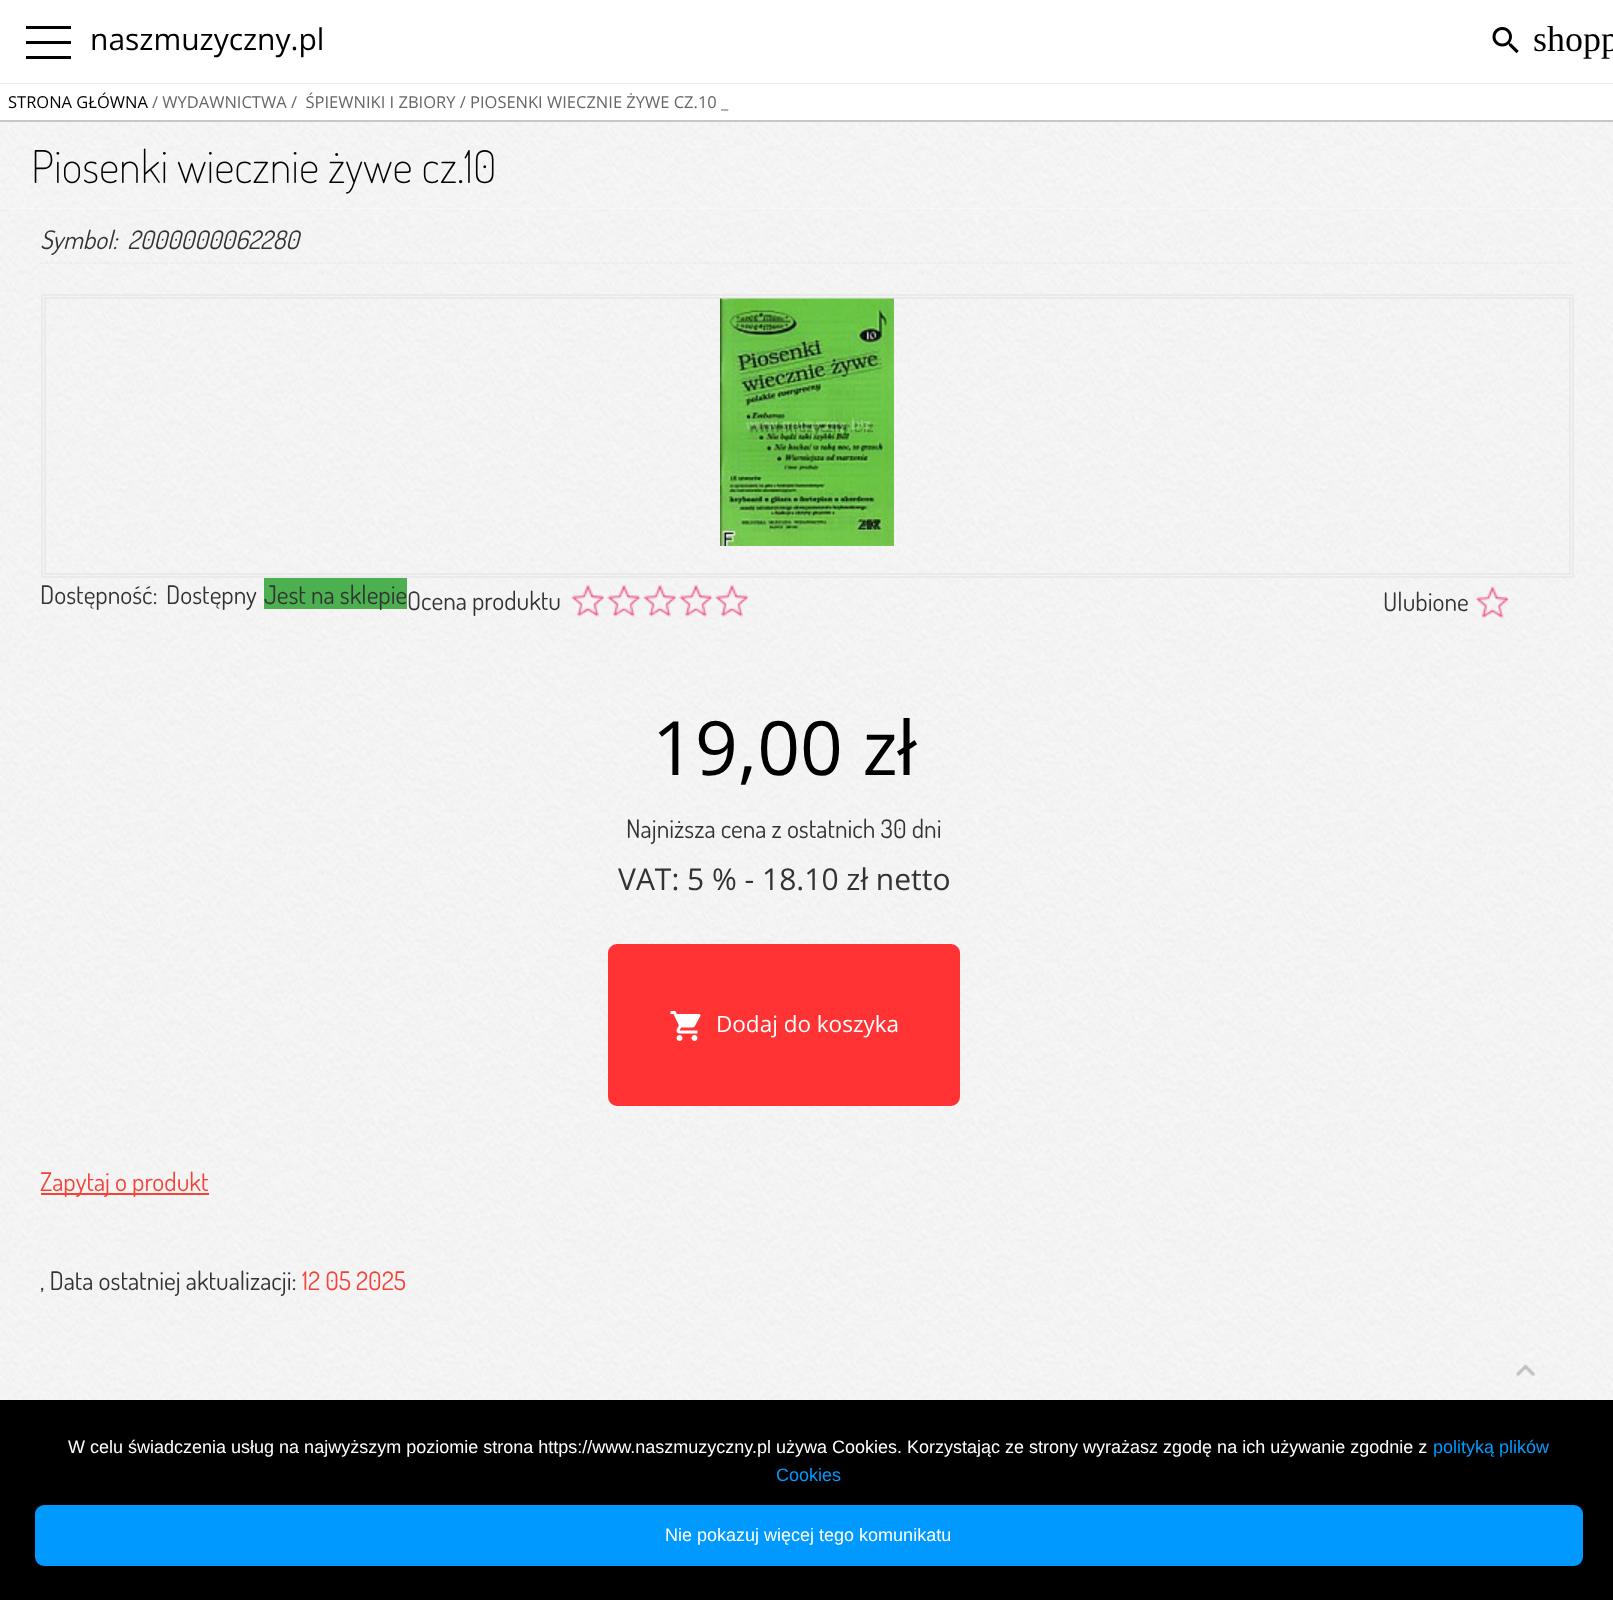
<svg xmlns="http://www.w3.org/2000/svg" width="1613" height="1600">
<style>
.a{font:30px Open Sans;fill:#000}
.b{font:36px Liberation Serif;fill:#000}
.c{font:16.5px Open Sans;fill:#000}
.d{font:16.5px Open Sans;fill:#666}
.e{font:200 45px Dosis;fill:#000}
.f{font:italic 25.5px Dosis;fill:#333}
.g{font:25.5px Dosis;fill:#333}
.h{font:75px Open Sans;fill:#000}
.i{font:30px Open Sans;fill:#333}
.j{font:22.5px Open Sans;fill:#fff}
.k{font:25.5px Dosis;fill:#f44336}
.l{font:18px Liberation Sans;fill:#fff}
.m{font:18px Liberation Sans;fill:#09f}
</style>
<rect width="100%" height="100%" fill="#fafafa"/>
<path fill="#fff" d="M0 0h1613v83H0z"/>
<path fill="#eaeaea" d="M0 83h1613v1H0z"/>
<path fill="#000" d="M26 26h45v3H26z"/>
<path fill="#000" d="M26 41h45v3H26z"/>
<path fill="#000" d="M26 56h45v3H26z"/>
<image href="1.png" x="1492" y="27" width="27" height="27"/>
<image href="2.png" x="0" y="122" width="1613" height="87"/>
<path fill="#fff" d="M0 84h1613v36H0z"/>
<path fill="#c7c7c7" d="M0 120h1613v2H0z"/>
<image href="3.png" x="0" y="209" width="1613" height="1191"/>
<path fill="none" stroke="#e6e6e6" stroke-width="1.5" stroke-dasharray="1.5 1.5" d="M40.5 263h1533"/>
<path fill="none" stroke="#eaeaea" stroke-width="2" d="M42 295h1531v282H42z"/>
<path fill="none" stroke="#eaeaea" stroke-width="2" d="M45 298h1525v276H45z"/>
<image href="4.png" x="720" y="298" width="174" height="248"/>
<path fill="#4caf50" d="M264 578h143v31H264z"/>
<image href="5.png" x="571" y="584" width="34" height="33"/>
<image href="6.png" x="607" y="584" width="34" height="33"/>
<image href="7.png" x="643" y="584" width="34" height="33"/>
<image href="8.png" x="679" y="584" width="34" height="33"/>
<image href="9.png" x="715" y="584" width="34" height="33"/>
<image href="10.png" x="1475" y="586" width="34" height="33"/>
<rect fill="#f33" stroke="#f33" stroke-width="2" x="609" y="945" width="350" height="160" rx="8"/>
<image href="11.png" x="670" y="1011" width="31" height="30"/>
<path fill="#f44336" d="M41 1193h168v2H41z"/>
<image href="12.png" x="1516" y="1364" width="19" height="12"/>
<path fill="#000" d="M0 1400h1613v200H0z"/>
<rect fill="#09f" stroke="#09f" stroke-width="2" x="36" y="1506" width="1546" height="59" rx="8"/>
<text class="a" x="90" y="50">naszmuzyczny.pl</text>
<text class="b" x="1533" y="51">shopp</text>
<text class="c" x="8" y="108">STRONA GŁÓWNA</text>
<text class="d" xml:space="preserve" x="152" y="108">/ WYDAWNICTWA /  ŚPIEWNIKI I ZBIORY / PIOSENKI WIECZNIE ŻYWE CZ.10 _</text>
<text class="e" x="31" y="183">Piosenki wiecznie żywe cz.10</text>
<text class="f" xml:space="preserve" x="40" y="249">Symbol:  2000000062280</text>
<text class="g" x="40" y="604">Dostępność:</text>
<text class="g" x="166" y="604">Dostępny</text>
<text class="g" x="264" y="604">Jest na sklepie</text>
<text class="g" x="407" y="610">Ocena produktu</text>
<text class="g" x="1383" y="611">Ulubione</text>
<text class="h" x="652" y="775">19,00 zł</text>
<text class="g" x="626" y="838">Najniższa cena z ostatnich 30 dni</text>
<text class="i" x="618" y="890">VAT: 5 % - 18.10 zł netto</text>
<text class="j" x="716" y="1032">Dodaj do koszyka</text>
<text class="k" x="40" y="1191">Zapytaj o produkt</text>
<text class="g" x="40" y="1290">, Data ostatniej aktualizacji:</text>
<text class="k" x="302" y="1290">12 05 2025</text>
<text class="l" x="68" y="1453">W celu świadczenia usług na najwyższym poziomie strona https://www.naszmuzyczny.pl używa Cookies. Korzystając ze strony wyrażasz zgodę na ich używanie zgodnie z</text>
<text class="m" x="1433" y="1453">polityką plików</text>
<text class="m" x="776" y="1481">Cookies</text>
<text class="l" x="665" y="1541">Nie pokazuj więcej tego komunikatu</text>
</svg>
